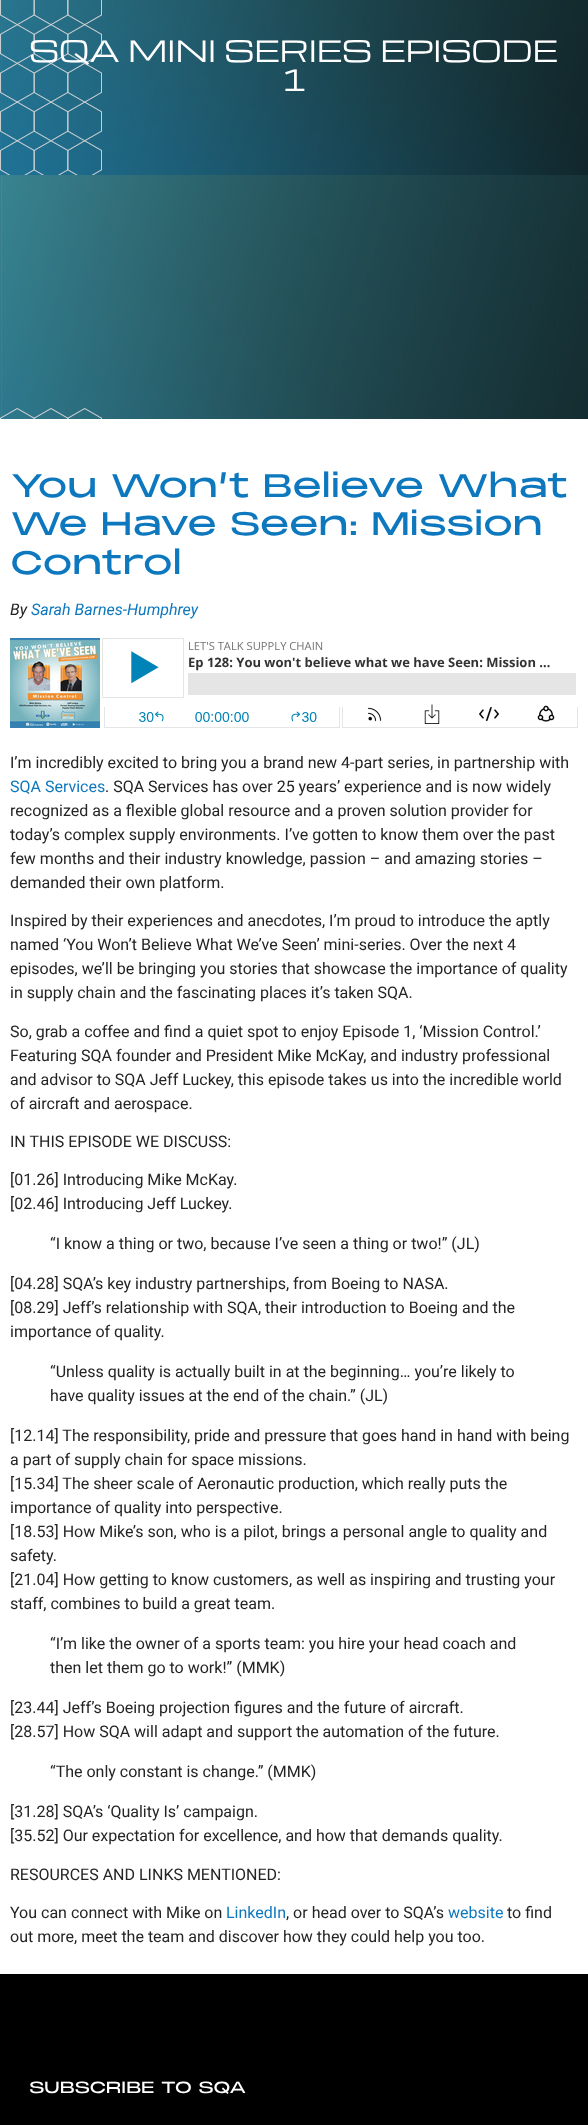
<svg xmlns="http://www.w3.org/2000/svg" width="588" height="2125">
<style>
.a{font:28.75px Michroma;fill:#fff}
.b{font:32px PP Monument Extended;fill:#0e78be}
.c{font:italic 16px Roboto;fill:#242424}
.d{font:italic 16px Roboto;fill:#0e78be}
.e{font:16px Roboto;fill:#242424}
.f{font:16px Roboto;fill:#0e78be}
.g{font:16px PP Monument Extended;fill:#fff}
</style>
<rect width="100%" height="100%" fill="#fff"/>
<image href="1.png" x="0" y="0" width="588" height="419"/>
<image href="2.png" x="10" y="638" width="568" height="90"/>
<path fill="#000" d="M0 1974h588v151H0z"/>
<text class="a" x="29" y="62">SQA MINI SERIES EPISODE</text>
<text class="a" x="280" y="91">1</text>
<text class="b" x="10" y="497">You Won’t Believe What</text>
<text class="b" x="10" y="535">We Have Seen: Mission</text>
<text class="b" x="10" y="574">Control</text>
<text class="c" x="10" y="615">By</text>
<text class="d" x="31" y="615">Sarah Barnes-Humphrey</text>
<text class="e" x="10" y="768">I’m incredibly excited to bring you a brand new 4-part series, in partnership with</text>
<text class="f" x="10" y="792">SQA Services</text>
<text class="e" x="105" y="792">. SQA Services has over 25 years’ experience and is now widely</text>
<text class="e" x="10" y="816">recognized as a flexible global resource and a proven solution provider for</text>
<text class="e" x="10" y="840">today’s complex supply environments. I’ve gotten to know them over the past</text>
<text class="e" x="10" y="864">few months and their industry knowledge, passion – and amazing stories –</text>
<text class="e" x="10" y="888">demanded their own platform.</text>
<text class="e" x="10" y="926">Inspired by their experiences and anecdotes, I’m proud to introduce the aptly</text>
<text class="e" x="10" y="950">named ‘You Won’t Believe What We’ve Seen’ mini-series. Over the next 4</text>
<text class="e" x="10" y="974">episodes, we’ll be bringing you stories that showcase the importance of quality</text>
<text class="e" x="10" y="998">in supply chain and the fascinating places it’s taken SQA.</text>
<text class="e" x="10" y="1037">So, grab a coffee and find a quiet spot to enjoy Episode 1, ‘Mission Control.’</text>
<text class="e" x="10" y="1061">Featuring SQA founder and President Mike McKay, and industry professional</text>
<text class="e" x="10" y="1085">and advisor to SQA Jeff Luckey, this episode takes us into the incredible world</text>
<text class="e" x="10" y="1109">of aircraft and aerospace.</text>
<text class="e" x="10" y="1147">IN THIS EPISODE WE DISCUSS:</text>
<text class="e" x="10" y="1185">[01.26] Introducing Mike McKay.</text>
<text class="e" x="10" y="1209">[02.46] Introducing Jeff Luckey.</text>
<text class="e" x="50" y="1249">“I know a thing or two, because I’ve seen a thing or two!” (JL)</text>
<text class="e" x="10" y="1289">[04.28] SQA’s key industry partnerships, from Boeing to NASA.</text>
<text class="e" x="10" y="1313">[08.29] Jeff’s relationship with SQA, their introduction to Boeing and the</text>
<text class="e" x="10" y="1337">importance of quality.</text>
<text class="e" x="50" y="1377">“Unless quality is actually built in at the beginning… you’re likely to</text>
<text class="e" x="50" y="1401">have quality issues at the end of the chain.” (JL)</text>
<text class="e" x="10" y="1441">[12.14] The responsibility, pride and pressure that goes hand in hand with being</text>
<text class="e" x="10" y="1465">a part of supply chain for space missions.</text>
<text class="e" x="10" y="1489">[15.34] The sheer scale of Aeronautic production, which really puts the</text>
<text class="e" x="10" y="1513">importance of quality into perspective.</text>
<text class="e" x="10" y="1537">[18.53] How Mike’s son, who is a pilot, brings a personal angle to quality and</text>
<text class="e" x="10" y="1561">safety.</text>
<text class="e" x="10" y="1585">[21.04] How getting to know customers, as well as inspiring and trusting your</text>
<text class="e" x="10" y="1609">staff, combines to build a great team.</text>
<text class="e" x="50" y="1649">“I’m like the owner of a sports team: you hire your head coach and</text>
<text class="e" x="50" y="1673">then let them go to work!” (MMK)</text>
<text class="e" x="10" y="1713">[23.44] Jeff’s Boeing projection figures and the future of aircraft.</text>
<text class="e" x="10" y="1737">[28.57] How SQA will adapt and support the automation of the future.</text>
<text class="e" x="50" y="1777">“The only constant is change.” (MMK)</text>
<text class="e" x="10" y="1817">[31.28] SQA’s ‘Quality Is’ campaign.</text>
<text class="e" x="10" y="1841">[35.52] Our expectation for excellence, and how that demands quality.</text>
<text class="e" x="10" y="1880">RESOURCES AND LINKS MENTIONED:</text>
<text class="e" x="10" y="1918">You can connect with Mike on</text>
<text class="f" x="226" y="1918">LinkedIn</text>
<text class="e" x="286" y="1918">, or head over to SQA’s</text>
<text class="f" x="448" y="1918">website</text>
<text class="e" x="507" y="1918">to find</text>
<text class="e" x="10" y="1942">out more, meet the team and discover how they could help you too.</text>
<text class="g" x="29" y="2093">SUBSCRIBE TO SQA</text>
</svg>
